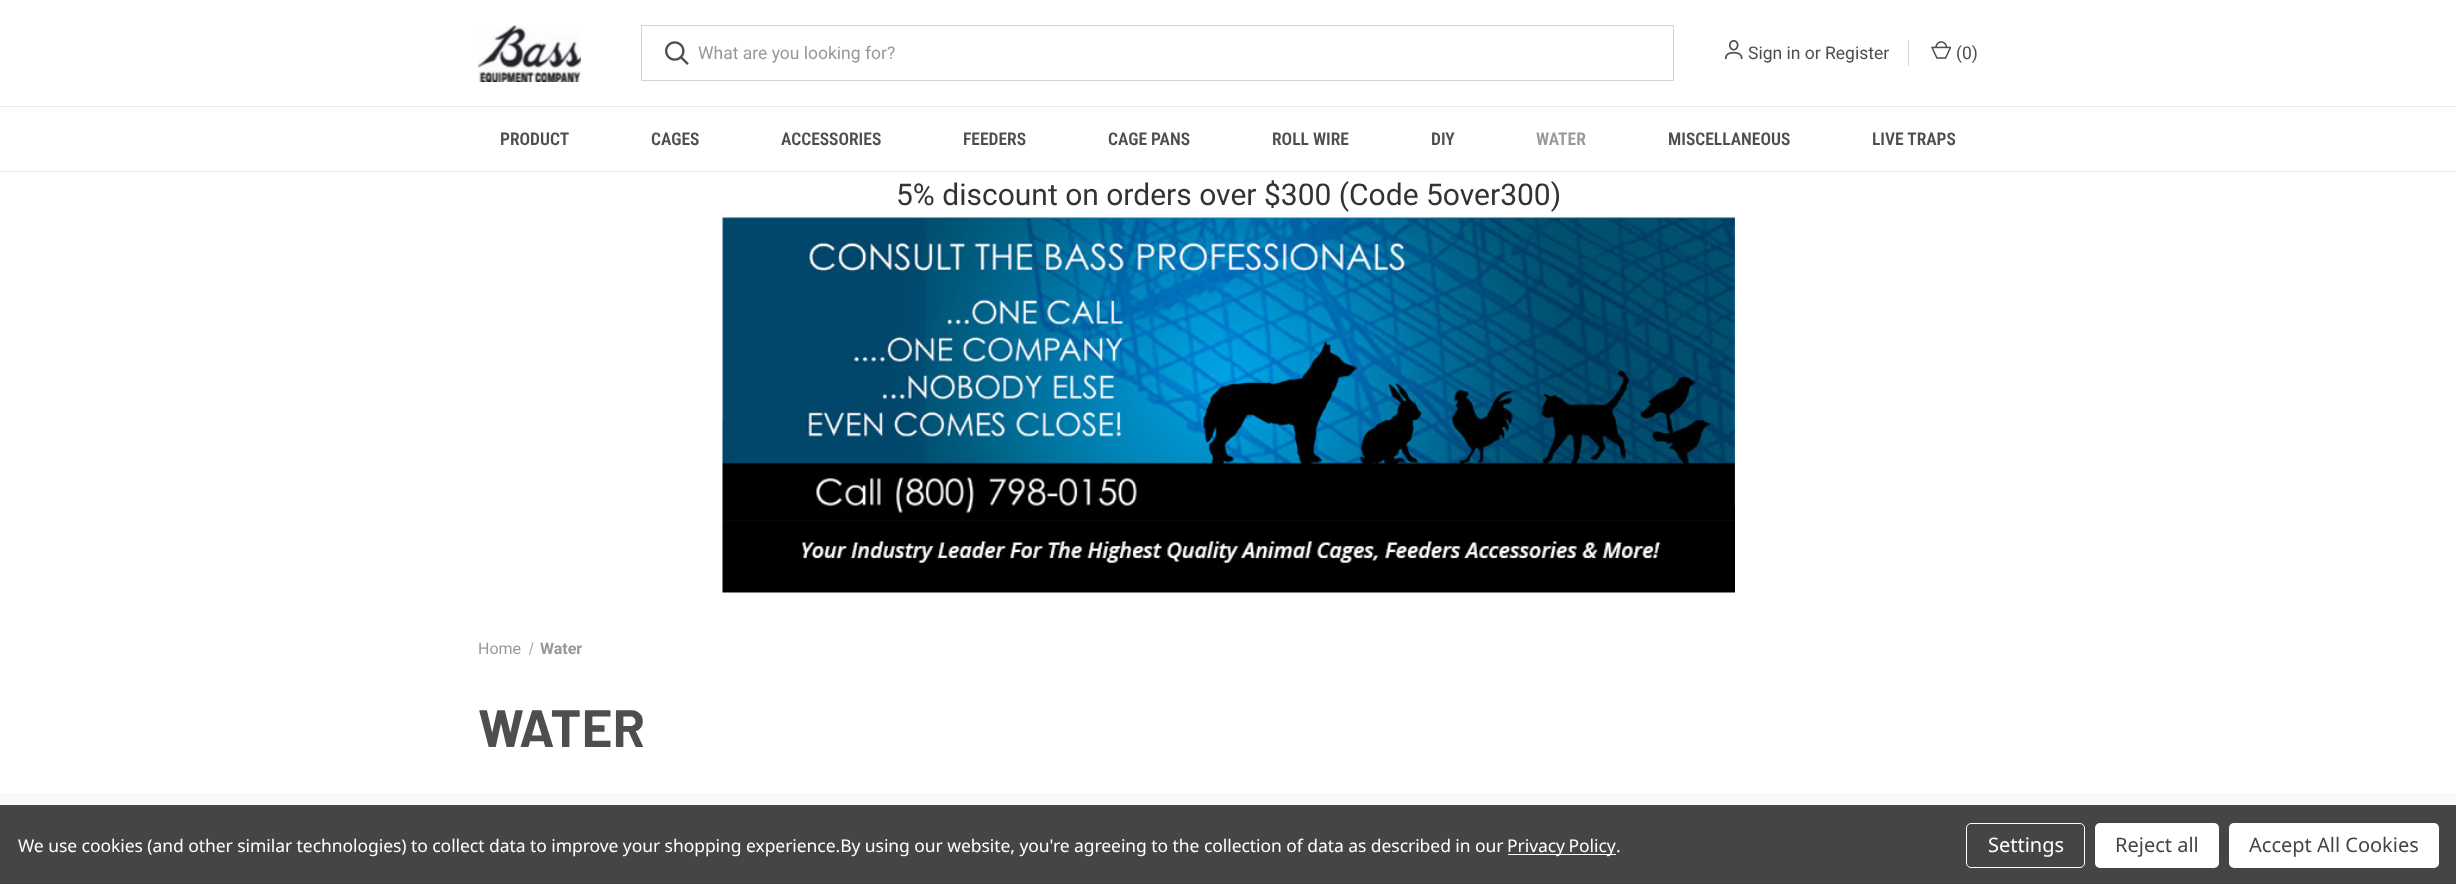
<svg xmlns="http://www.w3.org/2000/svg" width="2456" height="884">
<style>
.a{font:17.5px Roboto;fill:#989898}
.b{font:17.5px Roboto;fill:#4e4e4e}
.c{font:600 17.5px Roboto Condensed;fill:#4e4e4e}
.d{font:600 17.5px Roboto Condensed;fill:#989898}
.e{font:30px Roboto;fill:#333}
.f{font:16px Roboto;fill:#989898}
.g{font:bold 16px Roboto;fill:#989898}
.h{font:bold 52.5px Barlow;letter-spacing:0.5px;fill:#4e4e4e}
.i{font:17.5px Noto Sans;letter-spacing:-0.06px;fill:#fff}
.j{font:20px Noto Sans;fill:#fff}
.k{font:20px Noto Sans;fill:#454545}
</style>
<rect width="100%" height="100%" fill="#fff"/>
<image href="1.png" x="478" y="25" width="103" height="57"/>
<path fill="none" stroke="#d2d2d2" d="M641.5 25.5h1032v55H641.5z"/>
<image href="2.png" x="665" y="41" width="24" height="24"/>
<image href="3.png" x="1724" y="40" width="19" height="19"/>
<path fill="#d2d2d2" d="M1908 40h1v26H1908z"/>
<image href="4.png" x="1931" y="41" width="20" height="18"/>
<path fill="#ebebeb" d="M0 106h2456v1H0z"/>
<path fill="#ebebeb" d="M0 171h2456v1H0z"/>
<image href="5.png" x="722" y="217" width="1013" height="376"/>
<path fill="#a3a3a3" d="M532.5 642l1 .5l-3.5 12.5l-1-.5z"/>
<path fill="#f9f9f9" d="M0 793h2456v12H0z"/>
<path fill="#454545" d="M0 805h2456v79H0z"/>
<path fill="#fff" d="M1508 854h108v1H1508z"/>
<rect fill="none" stroke="#fff" x="1966.5" y="823.5" width="118" height="44" rx="4.5"/>
<rect fill="#fff" x="2095" y="823" width="124" height="45" rx="5"/>
<rect fill="#fff" x="2229" y="823" width="210" height="45" rx="5"/>
<text class="a" x="698" y="59">What are you looking for?</text>
<text class="b" x="1748" y="59">Sign in or Register</text>
<text class="b" x="1956" y="59">(0)</text>
<text class="c" x="500" y="145">PRODUCT</text>
<text class="c" x="651" y="145">CAGES</text>
<text class="c" x="781" y="145">ACCESSORIES</text>
<text class="c" x="963" y="145">FEEDERS</text>
<text class="c" x="1108" y="145">CAGE PANS</text>
<text class="c" x="1272" y="145">ROLL WIRE</text>
<text class="c" x="1431" y="145">DIY</text>
<text class="d" x="1536" y="145">WATER</text>
<text class="c" x="1668" y="145">MISCELLANEOUS</text>
<text class="c" x="1872" y="145">LIVE TRAPS</text>
<text class="e" x="896" y="205">5% discount on orders over $300 (Code 5over300)</text>
<text class="f" x="478" y="654">Home</text>
<text class="g" x="540" y="654">Water</text>
<text class="h" x="478" y="747">WATER</text>
<text class="i" x="18" y="852">We use cookies (and other similar technologies) to collect data to improve your shopping experience.By using our website, you're agreeing to the collection of data as described in our</text>
<text class="i" x="1507" y="852" word-spacing="-1">Privacy Policy</text>
<text class="i" x="1616" y="852">.</text>
<text class="j" x="1988" y="852">Settings</text>
<text class="k" x="2115" y="852">Reject all</text>
<text class="k" x="2249" y="852">Accept All Cookies</text>
</svg>
